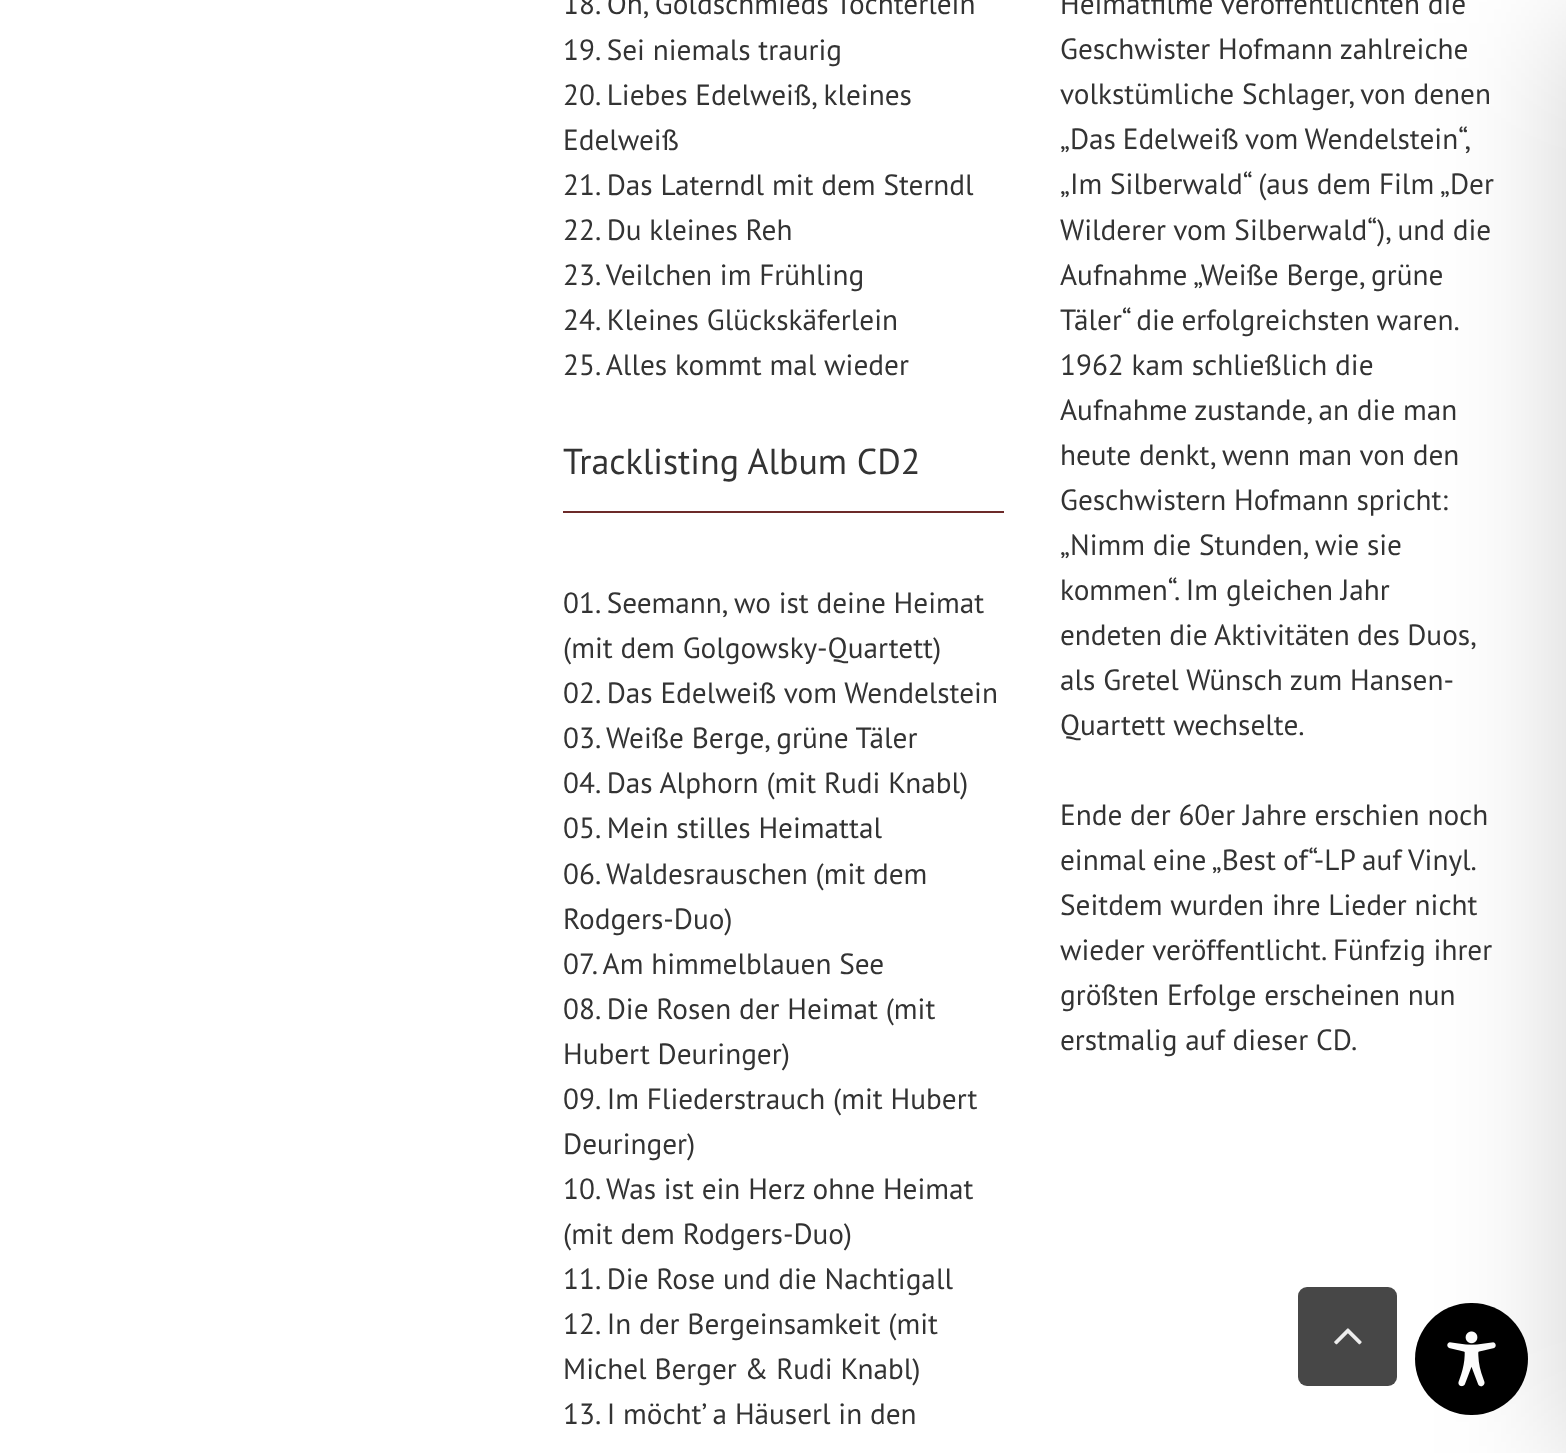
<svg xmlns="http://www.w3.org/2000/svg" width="1566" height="1453">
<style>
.a{font:29.25px PT Sans;fill:#333}
.b{font:36px PT Sans;fill:#333}
</style>
<rect width="100%" height="100%" fill="#fff"/>
<path fill="#6c2a29" d="M563 511h441v2H563z"/>
<rect fill="#474747" x="1298" y="1287" width="99" height="99" rx="9"/>
<image href="1.png" x="1334" y="1328" width="28" height="17"/>
<rect fill="#000" x="1415" y="1303" width="113" height="112" rx="56"/>
<image href="2.png" x="1447" y="1331" width="49" height="56"/>
<path fill="#00000033" filter="blur(67.5px)" d="M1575 23h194v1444H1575z"/>
<text class="a" x="563" y="14">18. Oh, Goldschmieds Töchterlein</text>
<text class="a" x="563" y="60">19. Sei niemals traurig</text>
<text class="a" x="563" y="105">20. Liebes Edelweiß, kleines</text>
<text class="a" x="563" y="150">Edelweiß</text>
<text class="a" x="563" y="195">21. Das Laterndl mit dem Sterndl</text>
<text class="a" x="563" y="240">22. Du kleines Reh</text>
<text class="a" x="563" y="285">23. Veilchen im Frühling</text>
<text class="a" x="563" y="330">24. Kleines Glückskäferlein</text>
<text class="a" x="563" y="375">25. Alles kommt mal wieder</text>
<text class="b" x="563" y="474">Tracklisting Album CD2</text>
<text class="a" x="563" y="613">01. Seemann, wo ist deine Heimat</text>
<text class="a" x="563" y="658">(mit dem Golgowsky-Quartett)</text>
<text class="a" x="563" y="703">02. Das Edelweiß vom Wendelstein</text>
<text class="a" x="563" y="748">03. Weiße Berge, grüne Täler</text>
<text class="a" x="563" y="793">04. Das Alphorn (mit Rudi Knabl)</text>
<text class="a" x="563" y="838">05. Mein stilles Heimattal</text>
<text class="a" x="563" y="884">06. Waldesrauschen (mit dem</text>
<text class="a" x="563" y="929">Rodgers-Duo)</text>
<text class="a" x="563" y="974">07. Am himmelblauen See</text>
<text class="a" x="563" y="1019">08. Die Rosen der Heimat (mit</text>
<text class="a" x="563" y="1064">Hubert Deuringer)</text>
<text class="a" x="563" y="1109">09. Im Fliederstrauch (mit Hubert</text>
<text class="a" x="563" y="1154">Deuringer)</text>
<text class="a" x="563" y="1199">10. Was ist ein Herz ohne Heimat</text>
<text class="a" x="563" y="1244">(mit dem Rodgers-Duo)</text>
<text class="a" x="563" y="1289">11. Die Rose und die Nachtigall</text>
<text class="a" x="563" y="1334">12. In der Bergeinsamkeit (mit</text>
<text class="a" x="563" y="1379">Michel Berger &amp; Rudi Knabl)</text>
<text class="a" x="563" y="1424">13. I möcht’ a Häuserl in den</text>
<text class="a" x="1060" y="14">Heimatfilme veröffentlichten die</text>
<text class="a" x="1060" y="59">Geschwister Hofmann zahlreiche</text>
<text class="a" x="1060" y="104">volkstümliche Schlager, von denen</text>
<text class="a" x="1060" y="149" word-spacing="-1">„Das Edelweiß vom Wendelstein“,</text>
<text class="a" x="1060" y="194">„Im Silberwald“ (aus dem Film „Der</text>
<text class="a" x="1060" y="240">Wilderer vom Silberwald“), und die</text>
<text class="a" x="1060" y="285">Aufnahme „Weiße Berge, grüne</text>
<text class="a" x="1060" y="330" word-spacing="-1">Täler“ die erfolgreichsten waren.</text>
<text class="a" x="1060" y="375">1962 kam schließlich die</text>
<text class="a" x="1060" y="420">Aufnahme zustande, an die man</text>
<text class="a" x="1060" y="465">heute denkt, wenn man von den</text>
<text class="a" x="1060" y="510">Geschwistern Hofmann spricht:</text>
<text class="a" x="1060" y="555">„Nimm die Stunden, wie sie</text>
<text class="a" x="1060" y="600">kommen“. Im gleichen Jahr</text>
<text class="a" x="1060" y="645" word-spacing="-0.5">endeten die Aktivitäten des Duos,</text>
<text class="a" x="1060" y="690">als Gretel Wünsch zum Hansen-</text>
<text class="a" x="1060" y="735">Quartett wechselte.</text>
<text class="a" x="1060" y="825">Ende der 60er Jahre erschien noch</text>
<text class="a" x="1060" y="870" word-spacing="-0.5">einmal eine „Best of“-LP auf Vinyl.</text>
<text class="a" x="1060" y="915">Seitdem wurden ihre Lieder nicht</text>
<text class="a" x="1060" y="960">wieder veröffentlicht. Fünfzig ihrer</text>
<text class="a" x="1060" y="1005">größten Erfolge erscheinen nun</text>
<text class="a" x="1060" y="1050">erstmalig auf dieser CD.</text>
</svg>
